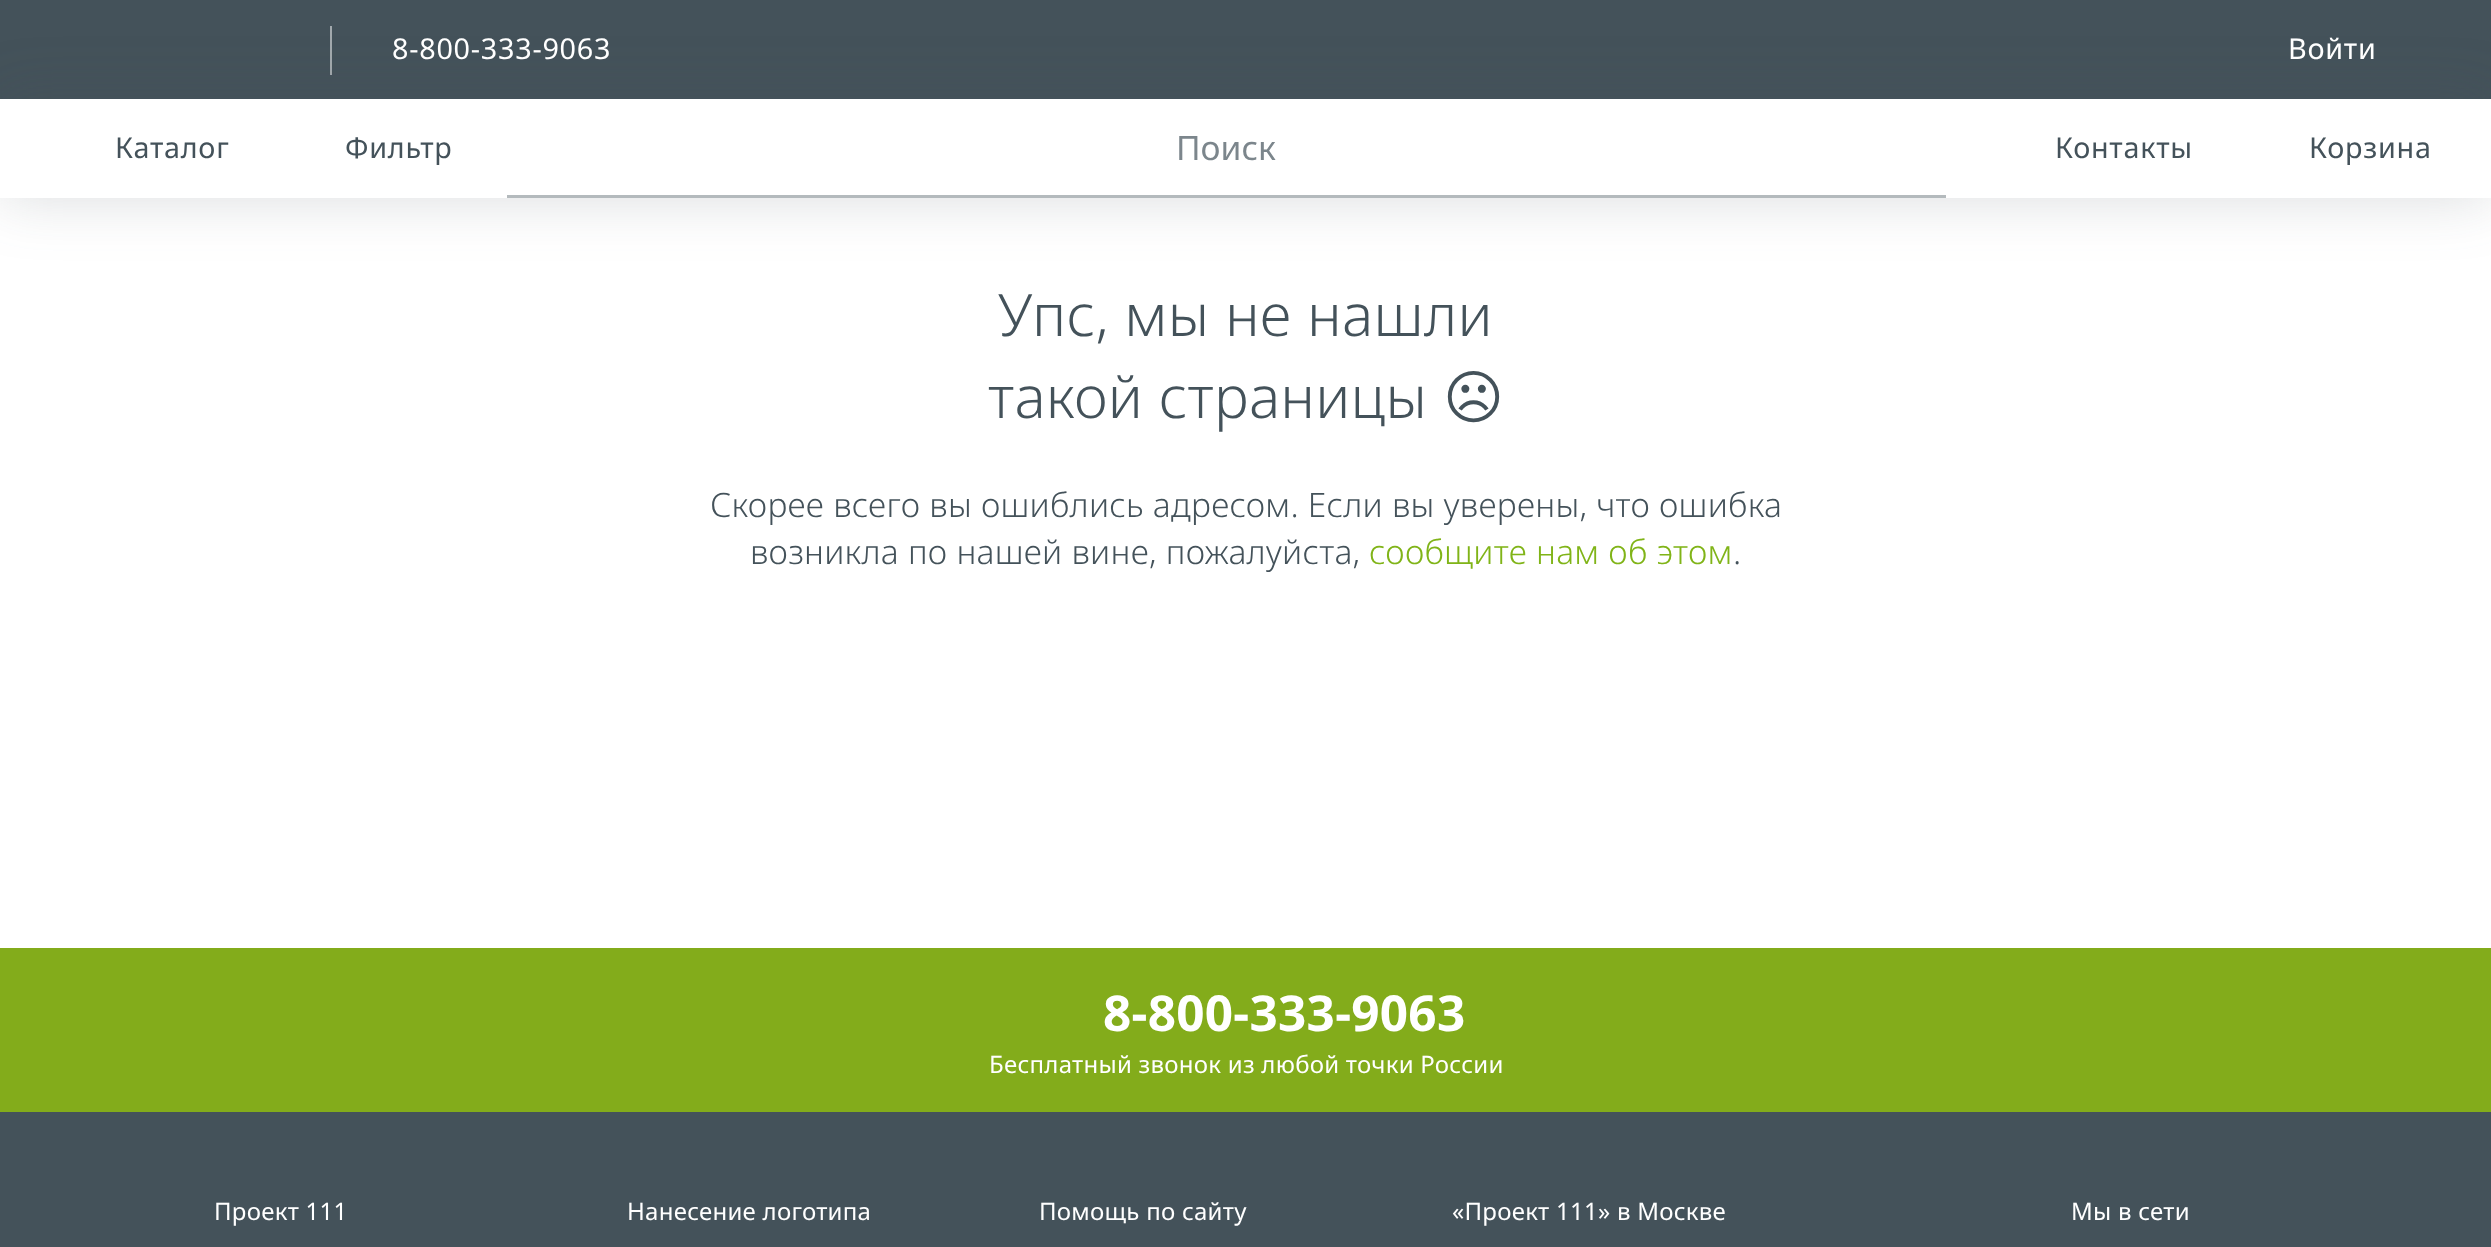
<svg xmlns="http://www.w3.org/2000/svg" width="2491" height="1247">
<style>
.a{font:28.75px Noto Sans;letter-spacing:0.75px;fill:#fff}
.b{font:28.75px Noto Sans;letter-spacing:0.75px;fill:#44525a}
.c{font:33.6px Noto Sans;fill:#7c868c}
.d{font:300 58.5px Noto Sans;letter-spacing:0.25px;fill:#44525a}
.e{font:58.5px DejaVu Sans;letter-spacing:0.25px;fill:#44525a}
.f{font:300 33.6px Noto Sans;letter-spacing:0.25px;fill:#44525a}
.g{font:300 33.6px Noto Sans;letter-spacing:0.25px;fill:#80b418}
.h{font:bold 49.5px Noto Sans;letter-spacing:0.25px;fill:#fff}
.i{font:24px Noto Sans;letter-spacing:0.25px;fill:#fff}
</style>
<defs>
<clipPath id="clip1"><path d="M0 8h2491v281h-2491zm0 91h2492v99h-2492z" clip-rule="evenodd"/></clipPath>
</defs>
<rect width="100%" height="100%" fill="#fff"/>
<path fill="#44525a" d="M0 0h2491v99H0z"/>
<path fill="#a2a9ad" d="M330 26h2v49H330z"/>
<g clip-path="url(#clip1)">
<path fill="#44525a33" filter="blur(30px)" d="M0 99h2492v99H0z"/>
</g>
<path fill="#b4babd" d="M507 195h1439v3H507z"/>
<path fill="#44525a" d="M0 1112h2491v135H0z"/>
<path fill="#83ac1b" d="M0 948h2491v164H0z"/>
<text class="a" x="392" y="59">8-800-333-9063</text>
<text class="a" x="2288" y="59">Войти</text>
<text class="b" x="115" y="158">Каталог</text>
<text class="b" x="345" y="158">Фильтр</text>
<text class="c" x="1176" y="160">Поиск</text>
<text class="b" x="2055" y="158">Контакты</text>
<text class="b" x="2309" y="158">Корзина</text>
<text class="d" x="998" y="336">Упс, мы не нашли</text>
<text class="d" x="988" y="418">такой страницы</text>
<text class="e" x="1443" y="418">☹</text>
<text class="f" x="710" y="517">Скорее всего вы ошиблись адресом. Если вы уверены, что ошибка</text>
<text class="f" x="750" y="564">возникла по нашей вине, пожалуйста,</text>
<text class="g" x="1369" y="564">сообщите нам об этом</text>
<text class="f" x="1733" y="564">.</text>
<text class="h" x="1103" y="1031">8-800-333-9063</text>
<text class="i" x="989" y="1073">Бесплатный звонок из любой точки России</text>
<text class="i" x="214" y="1220">Проект 111</text>
<text class="i" x="627" y="1220">Нанесение логотипа</text>
<text class="i" x="1039" y="1220">Помощь по сайту</text>
<text class="i" x="1452" y="1220">«Проект 111» в Москве</text>
<text class="i" x="2071" y="1220">Мы в сети</text>
</svg>
